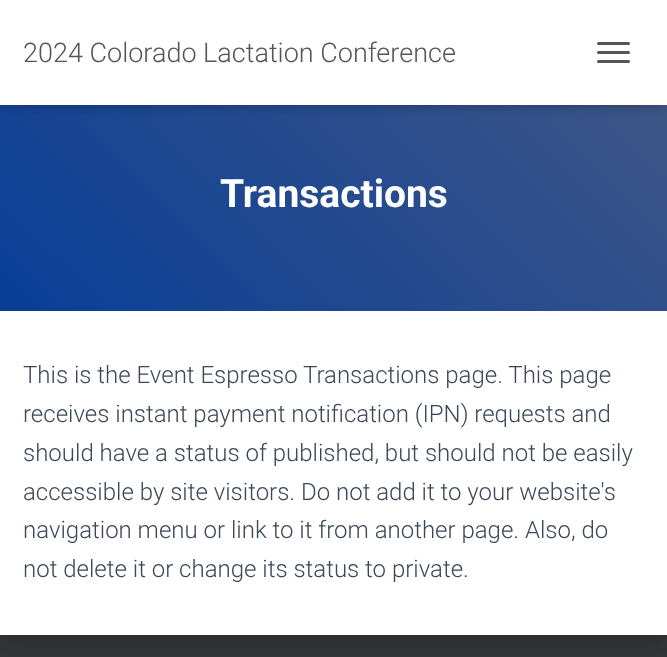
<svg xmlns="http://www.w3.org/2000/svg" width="667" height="657">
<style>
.a{font:300 27px Roboto;fill:#555}
.b{font:bold 39px Roboto;fill:#fff}
.c{font:300 24px Roboto;fill:#3c4858}
</style>
<defs>
<linearGradient id="g1" gradientUnits="userSpaceOnUse" x1="63" y1="464" x2="604" y2="-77"><stop offset="0" stop-color="#033c99"/><stop offset="1" stop-color="#455884"/></linearGradient>
</defs>
<rect width="100%" height="100%" fill="#323437"/>
<path fill="url(#g1)" d="M0 105h667v206H0z"/>
<path fill="#0000001a" filter="blur(4px)" d="M3 9h662v99H3z"/>
<path fill="#0000006b" filter="blur(7.5px)" d="M9 11h650v87H9z"/>
<path fill="#fff" d="M0 0h667v105H0z"/>
<rect fill="#555" x="597" y="42" width="33" height="3" rx="1.5"/>
<rect fill="#555" x="597" y="51" width="33" height="3" rx="1.5"/>
<rect fill="#555" x="597" y="60" width="33" height="3" rx="1.5"/>
<path fill="#00000033" filter="blur(7.5px)" d="M8 330h652v309H8z"/>
<path fill="#fff" d="M0 311h667v324H0z"/>
<text class="a" x="23" y="62">2024 Colorado Lactation Conference</text>
<text class="b" x="220" y="207">Transactions</text>
<text class="c" x="23" y="383">This is the Event Espresso Transactions page. This page</text>
<text class="c" x="23" y="422">receives instant payment notification (IPN) requests and</text>
<text class="c" x="23" y="461">should have a status of published, but should not be easily</text>
<text class="c" x="23" y="500">accessible by site visitors. Do not add it to your website's</text>
<text class="c" x="23" y="538">navigation menu or link to it from another page. Also, do</text>
<text class="c" x="23" y="577">not delete it or change its status to private.</text>
</svg>
